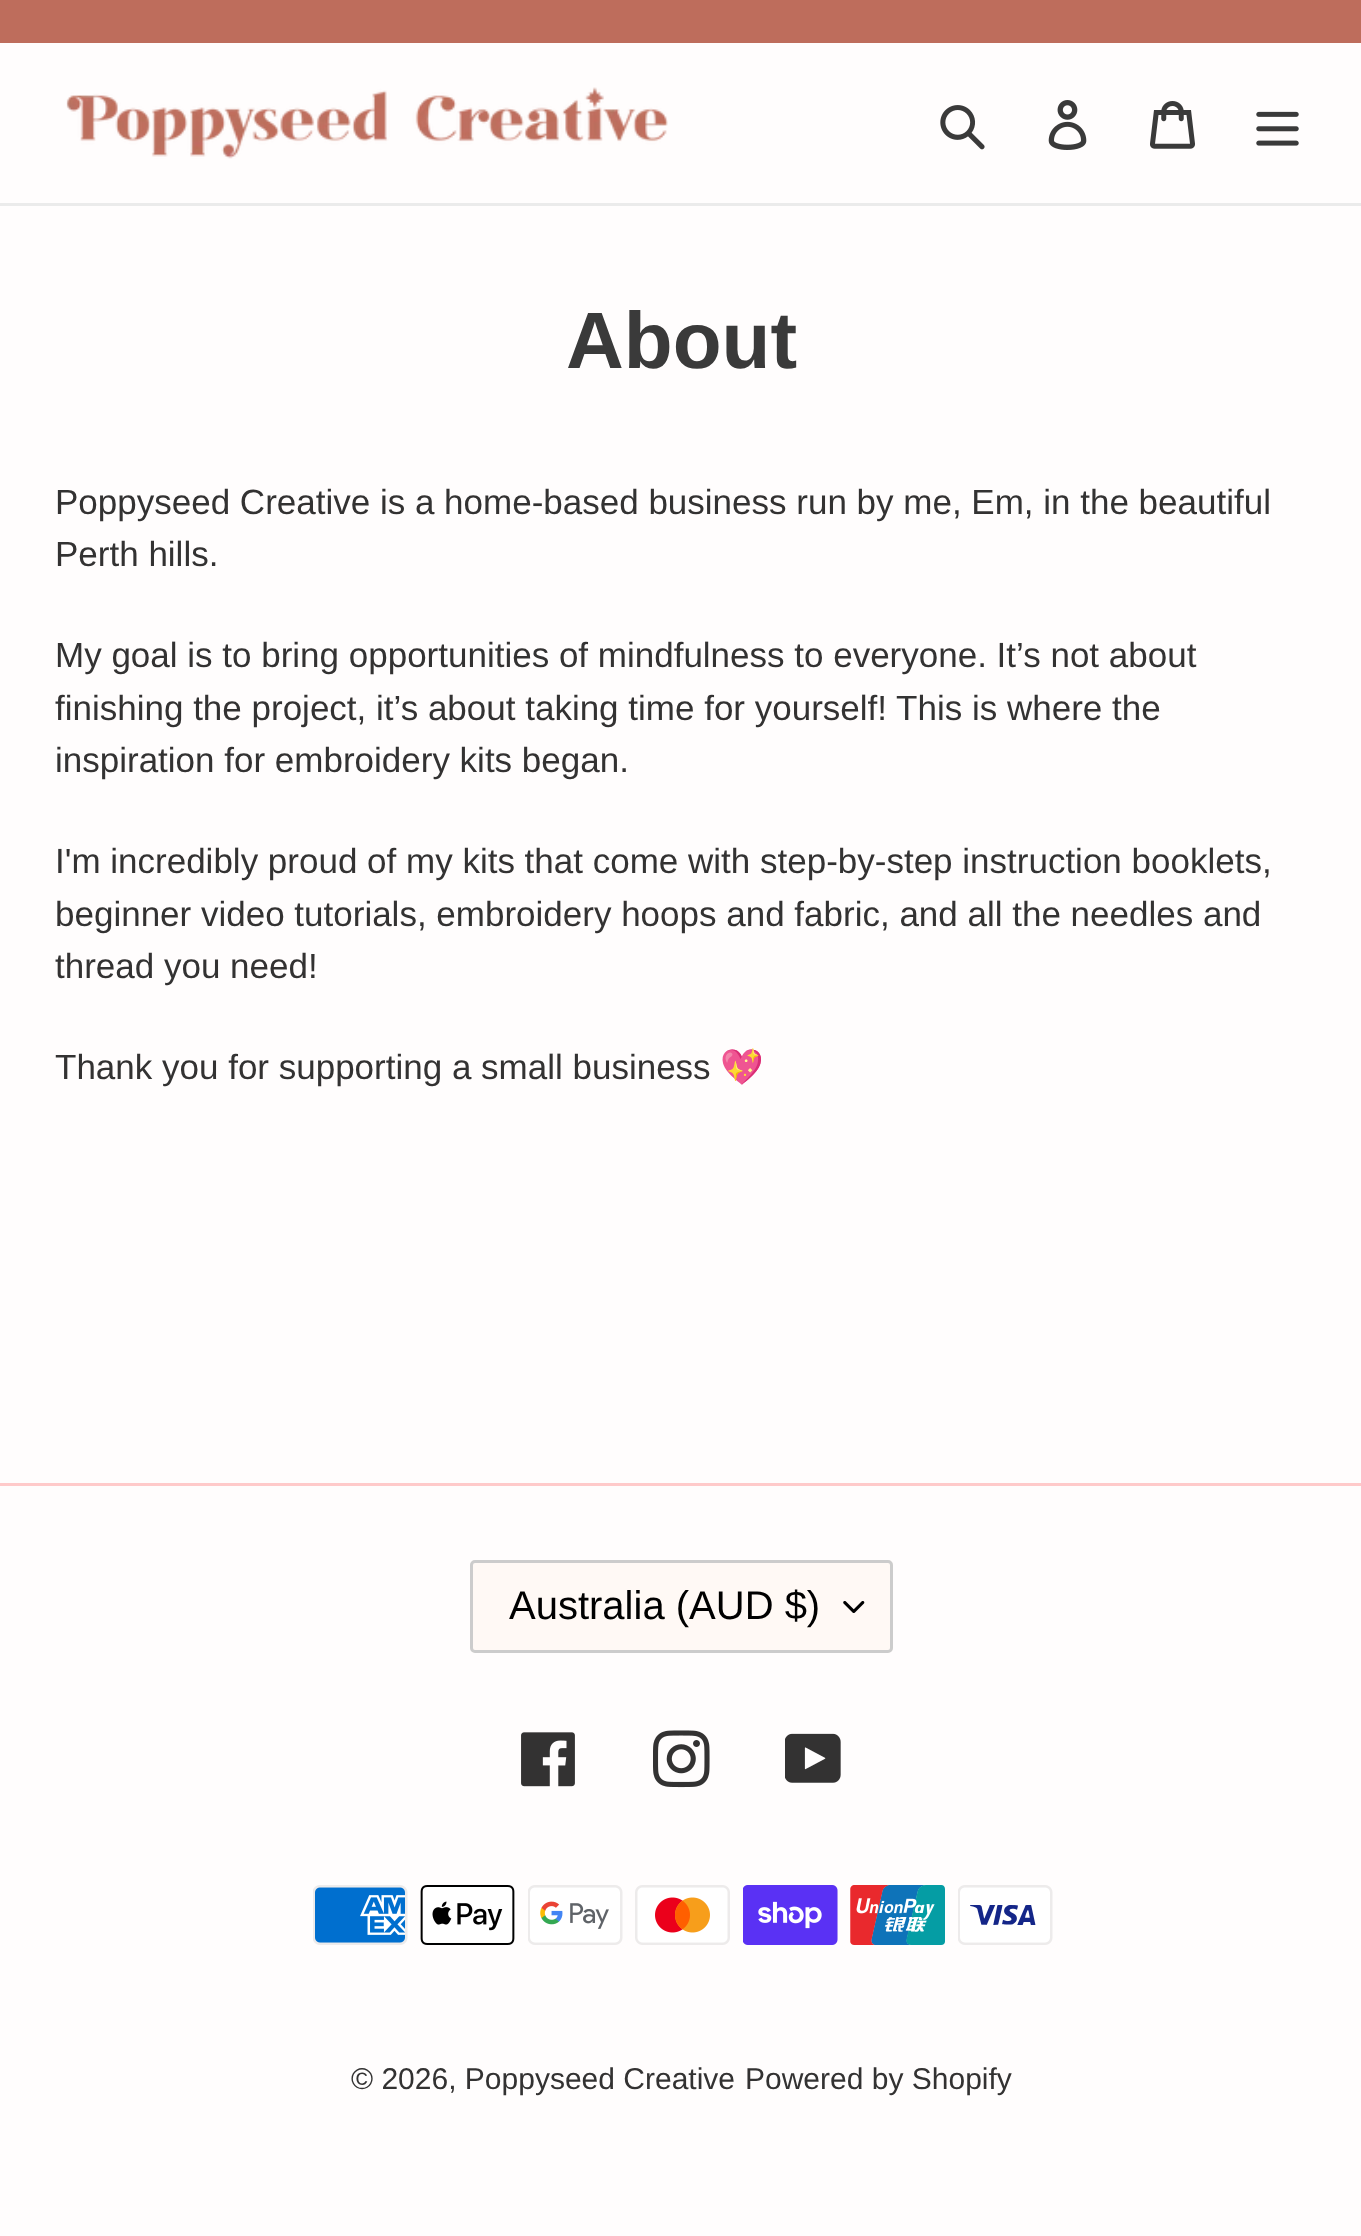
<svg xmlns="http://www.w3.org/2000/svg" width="1361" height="2236">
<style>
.a{font:bold 80px Liberation Sans;fill:#3a3a3a}
.b{font:35px Liberation Sans;fill:#333232}
.c{font:35px Noto Color Emoji;fill:#333232}
.d{font:40px Liberation Sans;fill:#000}
.e{font:30px Liberation Sans;fill:#333232}
</style>
<rect width="100%" height="100%" fill="#fffdfd"/>
<path fill="#be6d5c" d="M0 0h1361v43H0z"/>
<path fill="#ebebeb" d="M0 203h1361v3H0z"/>
<image href="1.png" x="66" y="87" width="602" height="72"/>
<image href="2.png" x="940" y="105" width="45" height="45"/>
<image href="3.png" x="1048" y="100" width="39" height="50"/>
<image href="4.png" x="1150" y="101" width="45" height="48"/>
<image href="5.png" x="1256" y="111" width="43" height="35"/>
<path fill="#ffcaca" d="M0 1483h1361v3H0z"/>
<rect fill="#fff9f5" x="470" y="1560" width="423" height="93" rx="5"/>
<image href="6.png" x="843" y="1601" width="22" height="12"/>
<rect fill="none" stroke="#ccc" stroke-width="3" x="471.5" y="1561.5" width="420" height="90" rx="3.5"/>
<image href="7.png" x="521" y="1732" width="54" height="55"/>
<image href="8.png" x="653" y="1730" width="57" height="58"/>
<image href="9.png" x="785" y="1733" width="56" height="50"/>
<image href="10.png" x="313" y="1885" width="95" height="60"/>
<image href="11.png" x="420" y="1885" width="95" height="60"/>
<image href="12.png" x="528" y="1885" width="95" height="60"/>
<image href="13.png" x="635" y="1885" width="95" height="60"/>
<image href="14.png" x="743" y="1885" width="95" height="60"/>
<image href="15.png" x="850" y="1885" width="95" height="60"/>
<image href="16.png" x="958" y="1885" width="95" height="60"/>
<text class="a" x="566" y="368">About</text>
<text class="b" x="55" y="514">Poppyseed Creative is a home-based business run by me, Em, in the beautiful</text>
<text class="b" x="55" y="566">Perth hills.</text>
<text class="b" x="55" y="667">My goal is to bring opportunities of mindfulness to everyone. It’s not about</text>
<text class="b" x="55" y="720">finishing the project, it’s about taking time for yourself! This is where the</text>
<text class="b" x="55" y="772">inspiration for embroidery kits began.</text>
<text class="b" x="55" y="873">I'm incredibly proud of my kits that come with step-by-step instruction booklets,</text>
<text class="b" x="55" y="926">beginner video tutorials, embroidery hoops and fabric, and all the needles and</text>
<text class="b" x="55" y="978">thread you need!</text>
<text class="b" x="55" y="1079">Thank you for supporting a small business</text>
<text class="c" x="720" y="1079">💖</text>
<text class="d" x="509" y="1619">Australia (AUD $)</text>
<text class="e" x="351" y="2089">© 2026, Poppyseed Creative</text>
<text class="e" x="745" y="2089">Powered by Shopify</text>
</svg>
